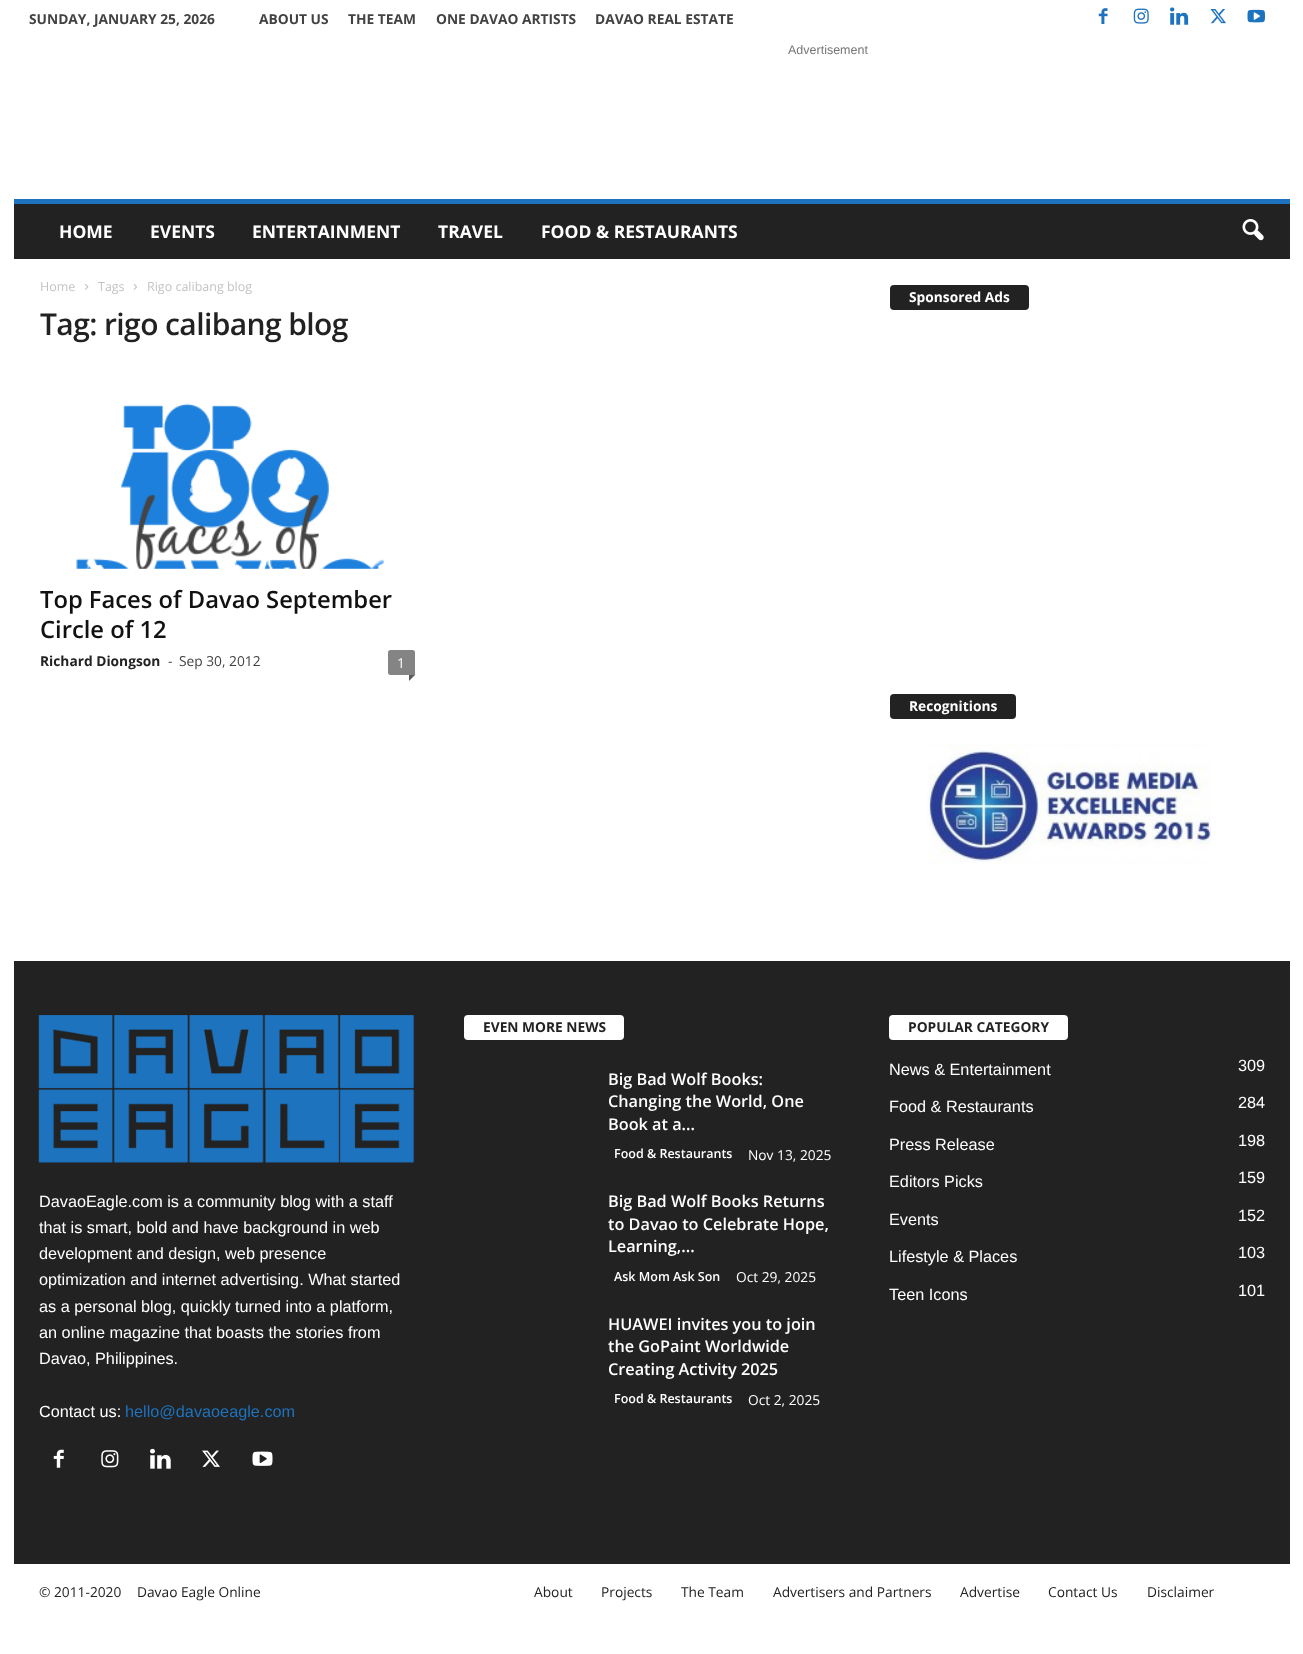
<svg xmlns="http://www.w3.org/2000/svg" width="1303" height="1654">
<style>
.a{font:bold 13.75px Open Sans;fill:#424242}
.b{font:12.5px Liberation Sans;fill:#767676}
.c{font:bold 17.5px Open Sans;fill:#fff}
.d{font:12.5px Open Sans;fill:#c3c3c3}
.e{font:600 30px Open Sans;letter-spacing:-0.6px;fill:#222}
.f{font:600 23.75px Open Sans;fill:#111}
.g{font:bold 13.75px Open Sans;fill:#222}
.h{font:13.75px Open Sans;fill:#424242}
.i{font:13.75px Open Sans;fill:#fff}
.j{font:bold 13.75px Open Sans;fill:#fff}
.k{font:16.25px Liberation Sans;fill:#fff}
.l{font:16.25px Liberation Sans;fill:#1e73be}
.m{font:600 16.25px Open Sans;fill:#fff}
.n{font:600 12.5px Open Sans;fill:#fff}
.o{font:13.75px Open Sans;fill:#222}
</style>
<rect width="100%" height="100%" fill="#fff"/>
<image href="1.png" x="1098" y="8" width="10" height="16"/>
<image href="2.png" x="1133" y="8" width="16" height="16"/>
<image href="3.png" x="1170" y="7" width="19" height="18"/>
<image href="4.png" x="1210" y="9" width="16" height="15"/>
<image href="5.png" x="1247" y="9" width="18" height="14"/>
<path fill="#222" d="M14 204h1276v55H14z"/>
<path fill="#1e73be" d="M14 199h1276v5H14z"/>
<image href="6.png" x="1242" y="219" width="22" height="22"/>
<image href="7.png" x="85" y="284" width="4" height="6"/>
<image href="8.png" x="133" y="284" width="4" height="6"/>
<image href="9.png" x="76" y="403" width="308" height="166"/>
<path fill="#848484" d="M390.5 650h22c1.5 0 2.5 1 2.5 2.5v22.5h-24.5c-1.5 0-2.5-1-2.5-2.5v-20c0-1.5 1-2.5 2.5-2.5z"/>
<path fill="#5b5b5b" d="M409 675h6l-6 6z"/>
<rect fill="#222" x="890" y="285" width="139" height="25" rx="4"/>
<rect fill="#222" x="890" y="694" width="126" height="25" rx="4"/>
<image href="10.png" x="927" y="744" width="284" height="120"/>
<path fill="#222" d="M14 961h1276v603H14z"/>
<image href="11.png" x="38" y="1015" width="377" height="148"/>
<image href="12.png" x="53" y="1449" width="11" height="19"/>
<image href="13.png" x="101" y="1450" width="18" height="18"/>
<image href="14.png" x="150" y="1448" width="21" height="21"/>
<image href="15.png" x="202" y="1450" width="18" height="17"/>
<image href="16.png" x="252" y="1451" width="21" height="15"/>
<rect fill="#fff" x="464" y="1015" width="160" height="25" rx="4"/>
<rect fill="#fff" x="889" y="1015" width="179" height="25" rx="4"/>
<text class="a" x="29" y="24">SUNDAY, JANUARY 25, 2026</text>
<text class="a" x="259" y="24">ABOUT US</text>
<text class="a" x="348" y="24">THE TEAM</text>
<text class="a" x="436" y="24">ONE DAVAO ARTISTS</text>
<text class="a" x="595" y="24">DAVAO REAL ESTATE</text>
<text class="b" x="788" y="54">Advertisement</text>
<text class="c" x="59" y="238">HOME</text>
<text class="c" x="150" y="238">EVENTS</text>
<text class="c" x="252" y="238">ENTERTAINMENT</text>
<text class="c" x="438" y="238">TRAVEL</text>
<text class="c" x="541" y="238">FOOD &amp; RESTAURANTS</text>
<text class="d" x="40" y="291">Home</text>
<text class="d" x="98" y="291">Tags</text>
<text class="d" x="147" y="291">Rigo calibang blog</text>
<text class="e" x="40" y="335">Tag: rigo calibang blog</text>
<text class="f" x="40" y="608">Top Faces of Davao September</text>
<text class="f" x="40" y="638">Circle of 12</text>
<text class="g" x="40" y="666">Richard Diongson</text>
<text class="h" x="168" y="666">-</text>
<text class="h" x="179" y="666">Sep 30, 2012</text>
<text class="i" x="397" y="668">1</text>
<text class="j" x="909" y="302">Sponsored Ads</text>
<text class="j" x="909" y="711">Recognitions</text>
<text class="k" x="39" y="1207">DavaoEagle.com is a community blog with a staff</text>
<text class="k" x="39" y="1233">that is smart, bold and have background in web</text>
<text class="k" x="39" y="1259">development and design, web presence</text>
<text class="k" x="39" y="1285">optimization and internet advertising. What started</text>
<text class="k" x="39" y="1312">as a personal blog, quickly turned into a platform,</text>
<text class="k" x="39" y="1338">an online magazine that boasts the stories from</text>
<text class="k" x="39" y="1364">Davao, Philippines.</text>
<text class="k" x="39" y="1417">Contact us:</text>
<text class="l" x="125" y="1417">hello@davaoeagle.com</text>
<text class="g" x="483" y="1032">EVEN MORE NEWS</text>
<text class="m" x="608" y="1085">Big Bad Wolf Books:</text>
<text class="m" x="608" y="1107">Changing the World, One</text>
<text class="m" x="608" y="1130">Book at a...</text>
<text class="n" x="614" y="1158">Food &amp; Restaurants</text>
<text class="i" x="748" y="1160">Nov 13, 2025</text>
<text class="m" x="608" y="1207">Big Bad Wolf Books Returns</text>
<text class="m" x="608" y="1230">to Davao to Celebrate Hope,</text>
<text class="m" x="608" y="1252">Learning,...</text>
<text class="n" x="614" y="1281">Ask Mom Ask Son</text>
<text class="i" x="736" y="1282">Oct 29, 2025</text>
<text class="m" x="608" y="1330">HUAWEI invites you to join</text>
<text class="m" x="608" y="1352">the GoPaint Worldwide</text>
<text class="m" x="608" y="1375">Creating Activity 2025</text>
<text class="n" x="614" y="1403">Food &amp; Restaurants</text>
<text class="i" x="748" y="1405">Oct 2, 2025</text>
<text class="g" x="908" y="1032">POPULAR CATEGORY</text>
<text class="k" x="889" y="1075">News &amp; Entertainment</text>
<text class="k" x="1238" y="1071">309</text>
<text class="k" x="889" y="1112">Food &amp; Restaurants</text>
<text class="k" x="1238" y="1108">284</text>
<text class="k" x="889" y="1150">Press Release</text>
<text class="k" x="1238" y="1146">198</text>
<text class="k" x="889" y="1187">Editors Picks</text>
<text class="k" x="1238" y="1183">159</text>
<text class="k" x="889" y="1225">Events</text>
<text class="k" x="1238" y="1221">152</text>
<text class="k" x="889" y="1262">Lifestyle &amp; Places</text>
<text class="k" x="1238" y="1258">103</text>
<text class="k" x="889" y="1300">Teen Icons</text>
<text class="k" x="1238" y="1296">101</text>
<text class="o" x="39" y="1597">© 2011-2020</text>
<text class="o" x="137" y="1597">Davao Eagle Online</text>
<text class="o" x="534" y="1597">About</text>
<text class="o" x="601" y="1597">Projects</text>
<text class="o" x="681" y="1597">The Team</text>
<text class="o" x="773" y="1597">Advertisers and Partners</text>
<text class="o" x="960" y="1597">Advertise</text>
<text class="o" x="1048" y="1597">Contact Us</text>
<text class="o" x="1147" y="1597">Disclaimer</text>
</svg>
